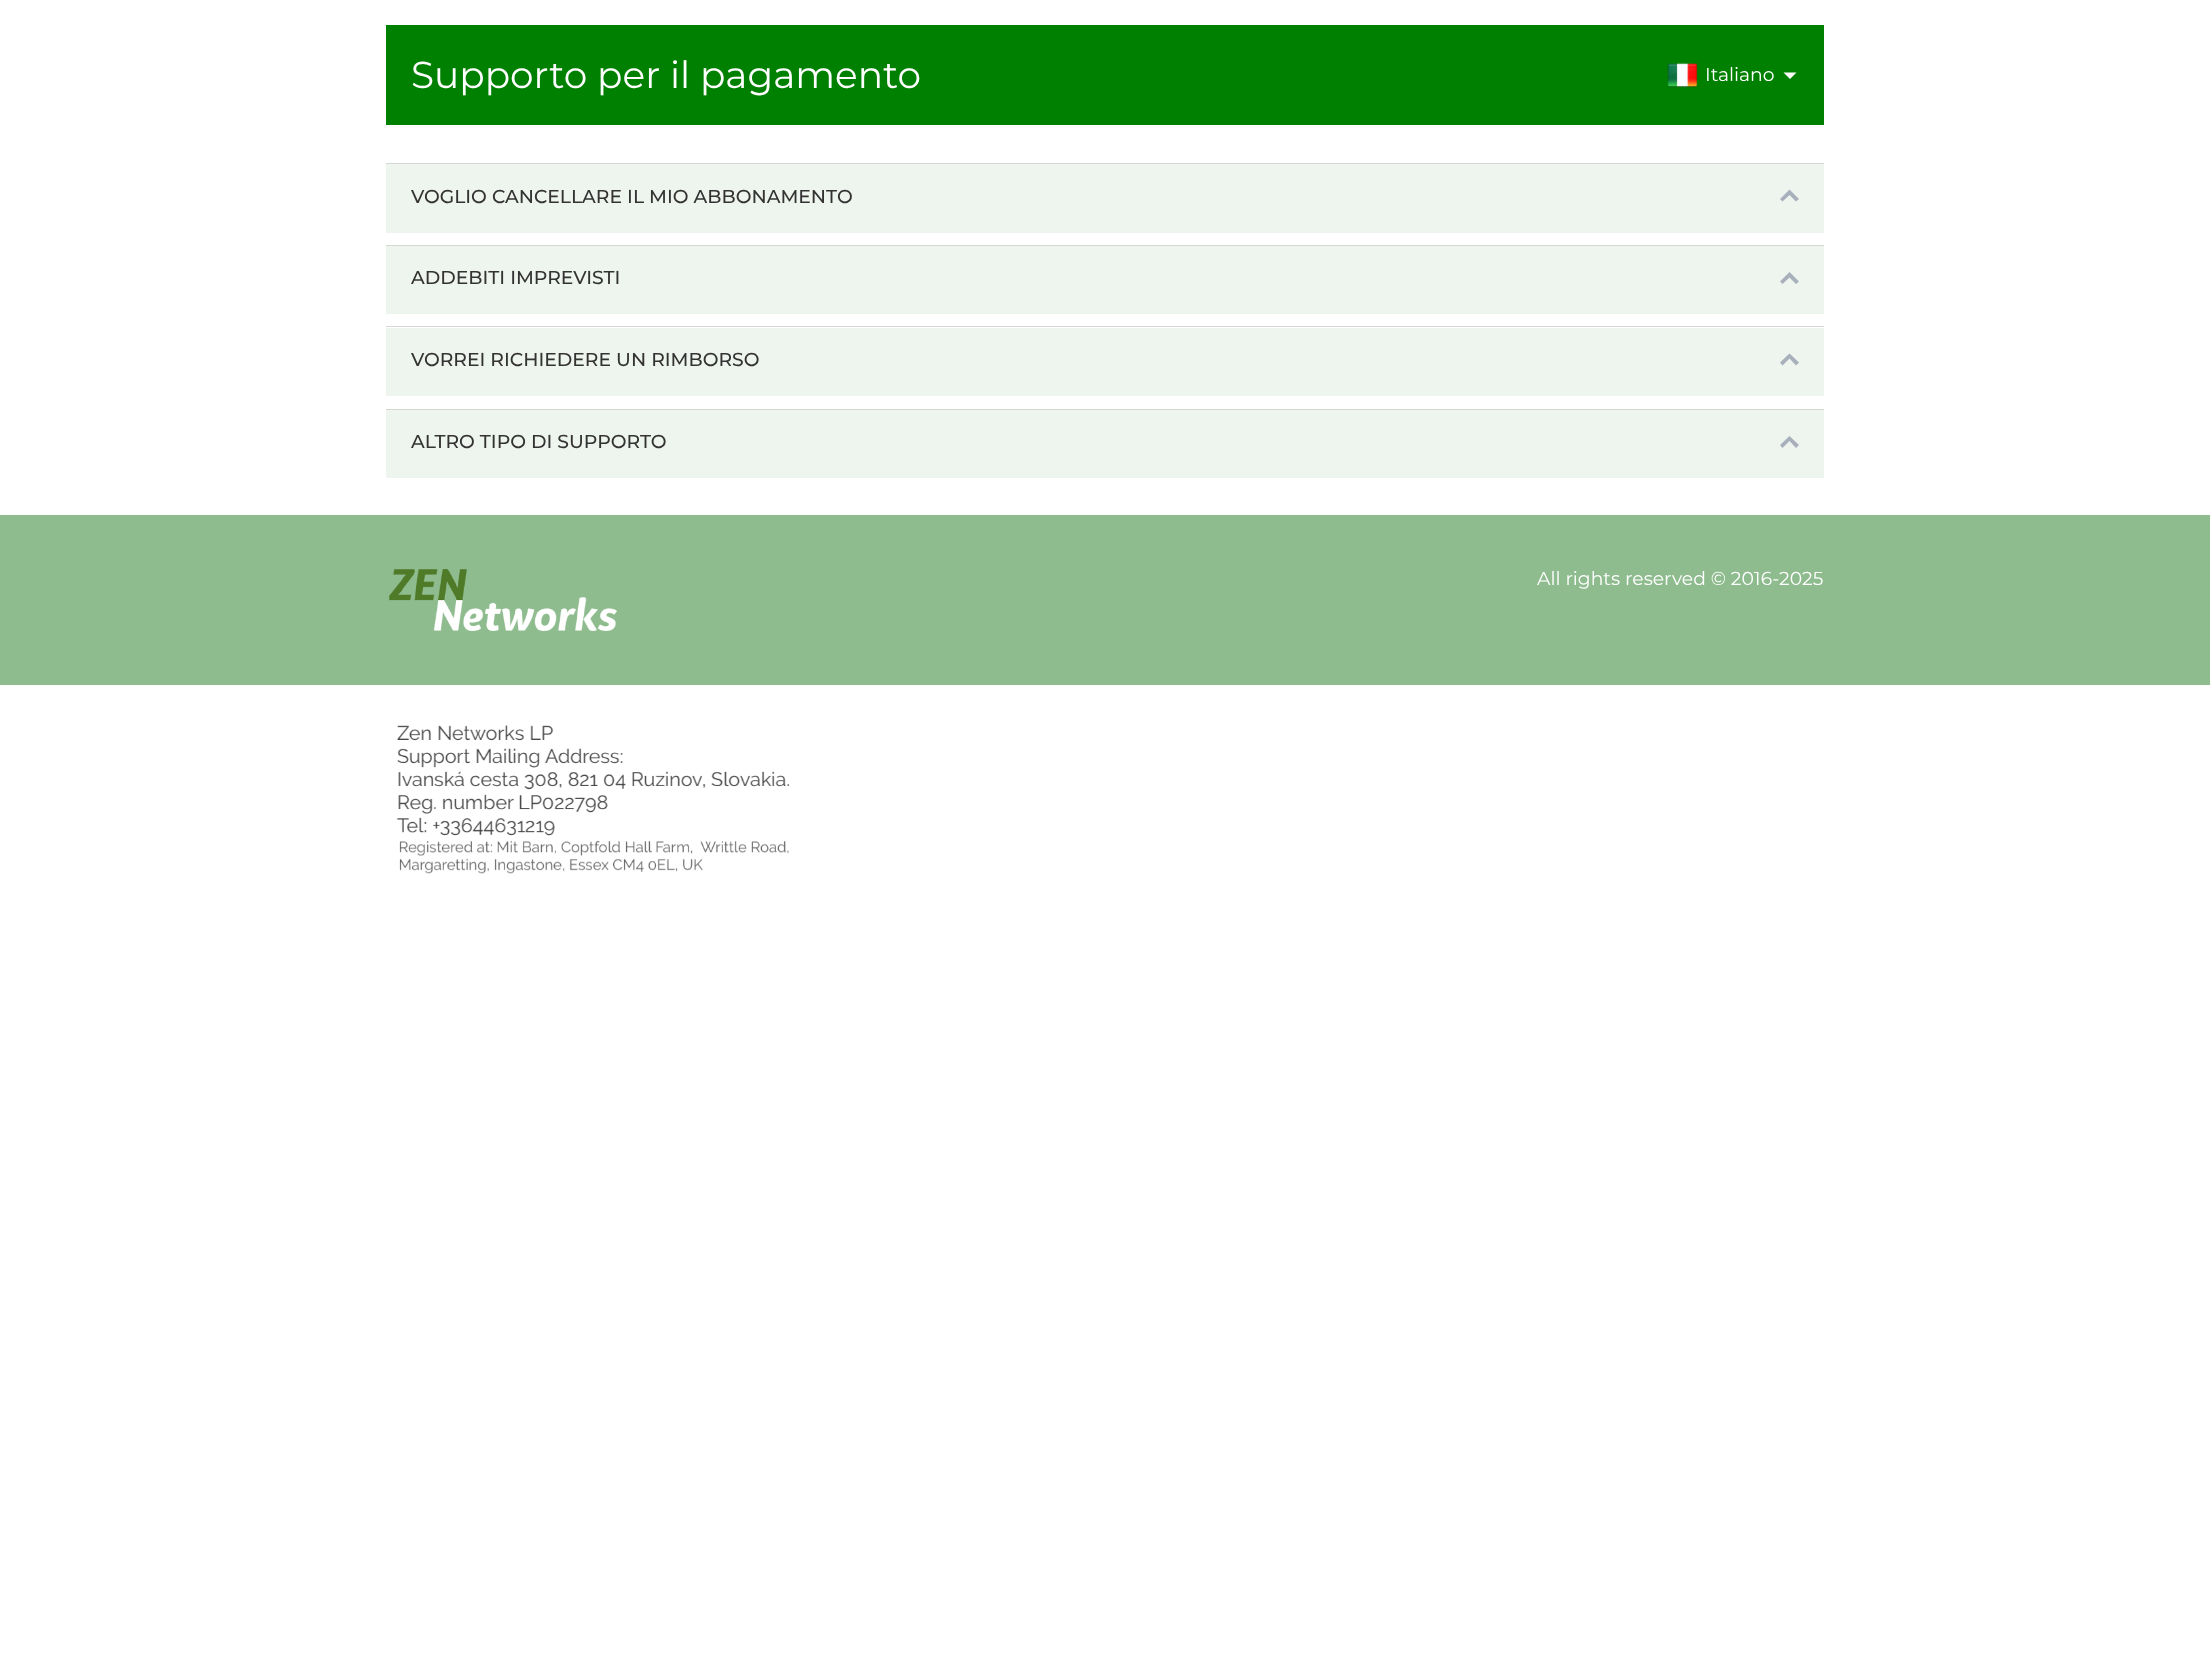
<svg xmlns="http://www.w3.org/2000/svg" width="2210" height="1657">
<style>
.a{font:37.5px Montserrat;fill:#fff}
.b{font:18.75px Montserrat;fill:#fff}
.c{font:500 18.75px Montserrat;fill:#333}
</style>
<rect width="100%" height="100%" fill="#fff"/>
<path fill="#008000" d="M386 25h1438v100H386z"/>
<image href="1.png" x="1667" y="62" width="31" height="26"/>
<path fill="#fff" d="M1783.5 72.5h13l-6.5 6.5z"/>
<path fill="#d4d8d3" d="M386 163h1438v1H386z"/>
<path fill="#eef4ee" d="M386 164h1438v69H386z"/>
<path fill="#a8b0bc" d="M1780 199l2.5 2.5l7-6.5l6.5 6.5l3-2.5l-9.5-9.5z"/>
<path fill="#d4d8d3" d="M386 245h1438v1H386z"/>
<path fill="#eef4ee" d="M386 246h1438v68H386z"/>
<path fill="#a8b0bc" d="M1780 281.5l2.5 2.5l7-6.5l6.5 6.5l3-2.5l-9.5-9.5z"/>
<path fill="#d4d8d3" d="M386 326h1438v1H386z"/>
<path fill="#eef4ee" d="M386 328h1438v68H386z"/>
<path fill="#a8b0bc" d="M1780 362.5l2.5 3l7-7l6.5 7l3-3l-9.5-9z"/>
<path fill="#d4d8d3" d="M386 409h1438v1H386z"/>
<path fill="#eef4ee" d="M386 410h1438v68H386z"/>
<path fill="#a8b0bc" d="M1780 445l2.5 3l7-7l6.5 7l3-3l-9.5-9z"/>
<path fill="#8fbc8f" d="M0 515h2210v170H0z"/>
<image href="2.png" x="389" y="569" width="228" height="62"/>
<image href="3.png" x="396" y="725" width="394" height="149"/>
<text class="a" x="411" y="88">Supporto per il pagamento</text>
<text class="b" x="1705" y="81">Italiano</text>
<text class="c" x="411" y="203">VOGLIO CANCELLARE IL MIO ABBONAMENTO</text>
<text class="c" x="411" y="284">ADDEBITI IMPREVISTI</text>
<text class="c" x="411" y="366">VORREI RICHIEDERE UN RIMBORSO</text>
<text class="c" x="411" y="448">ALTRO TIPO DI SUPPORTO</text>
<text class="b" x="1537" y="585">All rights reserved © 2016-2025</text>
</svg>
